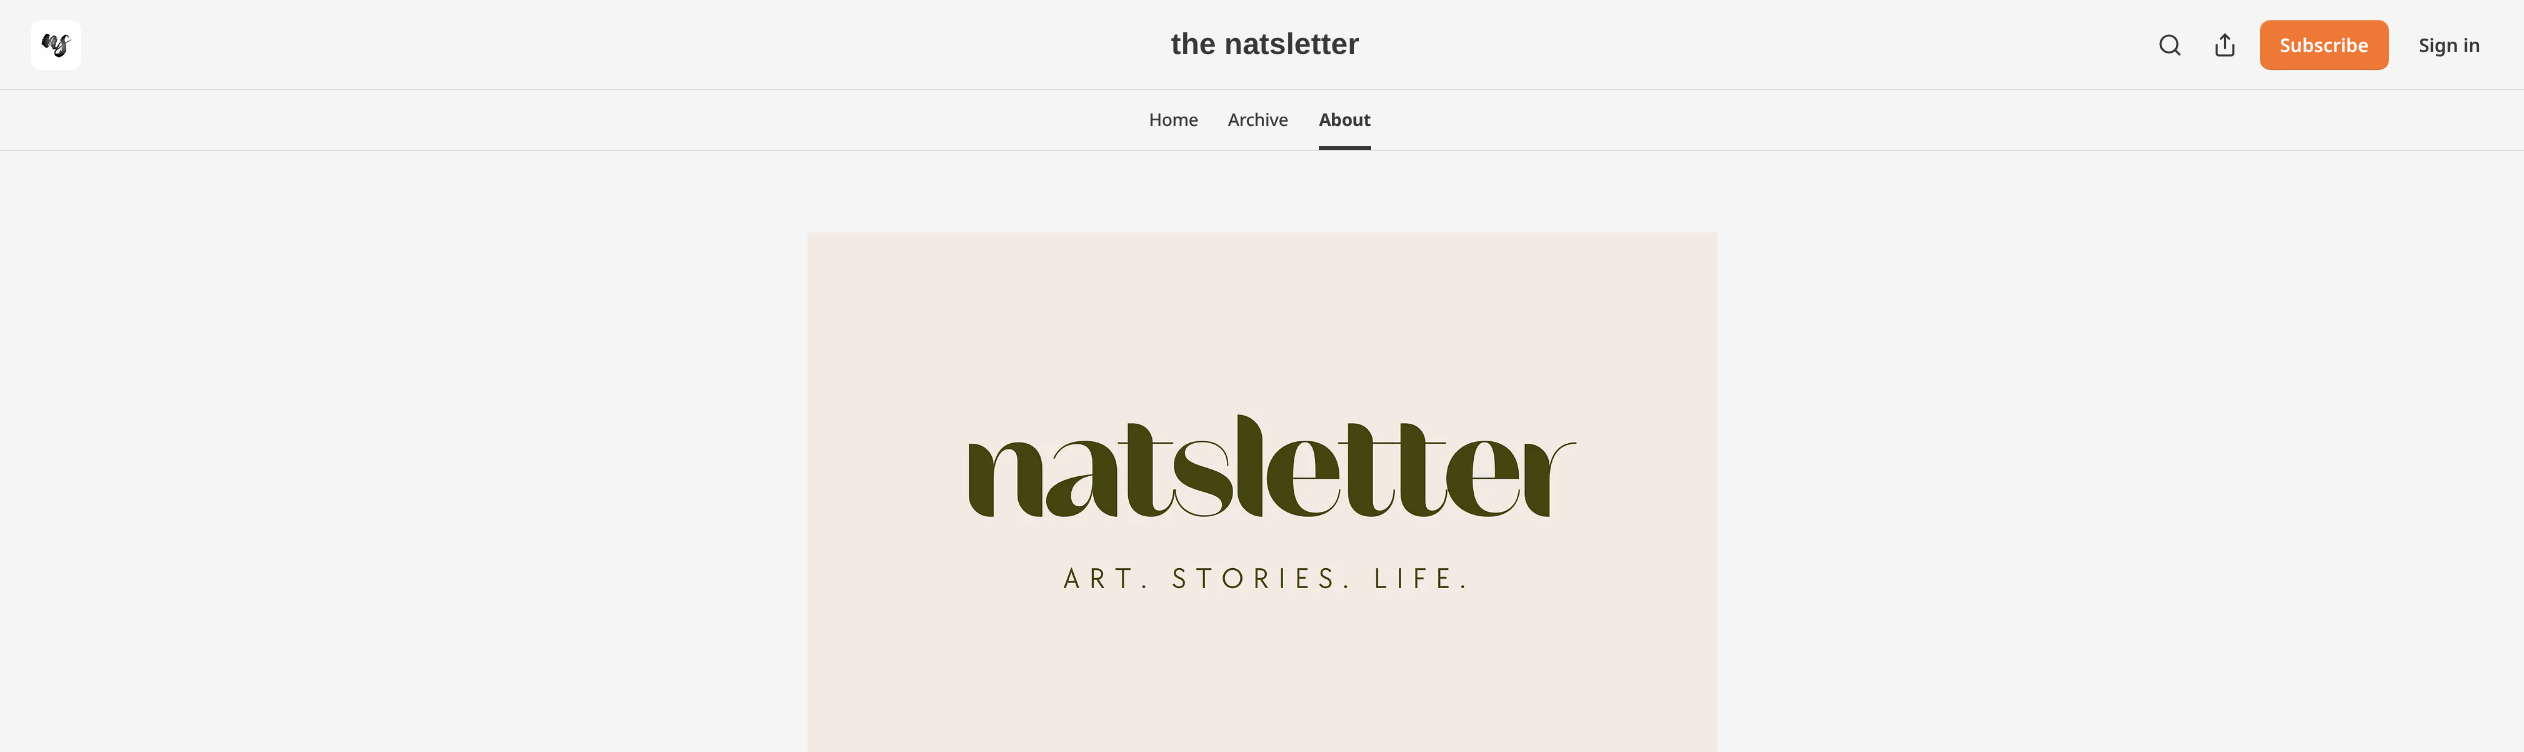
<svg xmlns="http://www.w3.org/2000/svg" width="2524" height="752">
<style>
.a{font:bold 30px Liberation Sans;fill:#363737}
.b{font:600 18.75px Noto Sans;fill:#fff}
.c{font:600 18.75px Noto Sans;fill:#363737}
.d{font:500 17.5px Noto Sans;letter-spacing:-0.25px;fill:#363737}
.e{font:bold 17.5px Noto Sans;letter-spacing:-0.25px;fill:#363737}
</style>
<rect width="100%" height="100%" fill="#f5f5f5"/>
<rect fill="#fff" x="31" y="20" width="50" height="50" rx="10"/>
<image href="1.png" x="41" y="33" width="31" height="25"/>
<circle fill="none" stroke="#363737" stroke-width="2.1" cx="2169" cy="44" r="8.5"/>
<path fill="none" stroke="#363737" stroke-width="2.1" stroke-linecap="round" stroke-linejoin="round" d="M2179.5 54.5l-4.5-4.5"/>
<image href="2.png" x="2215" y="33" width="20" height="24"/>
<rect fill="#ee7835" x="2260" y="20" width="129" height="50" rx="10"/>
<path fill="#0000001a" d="M2260 59c0 15 18 11 28 11h73c10 0 28 4 28-11c0 5-5 10-10 10h-109c-6 0-10-5-10-10z"/>
<path fill="#ffffff33" d="M2270 21h109c5 0 10 5 10 10c0-15-18-11-28-11h-73c-10 0-28-4-28 11c0-5 4-10 10-10z"/>
<path fill="#ddd" d="M0 89h2524v1H0z"/>
<path fill="#ddd" d="M0 150h2524v1H0z"/>
<path fill="#363737" d="M1319 146h52v4H1319z"/>
<image href="3.png" x="807" y="232" width="911" height="520"/>
<text class="a" x="1171" y="54">the natsletter</text>
<text class="b" x="2280" y="52">Subscribe</text>
<text class="c" x="2419" y="52">Sign in</text>
<text class="d" x="1149" y="126">Home</text>
<text class="d" x="1228" y="126">Archive</text>
<text class="e" x="1319" y="126">About</text>
</svg>
